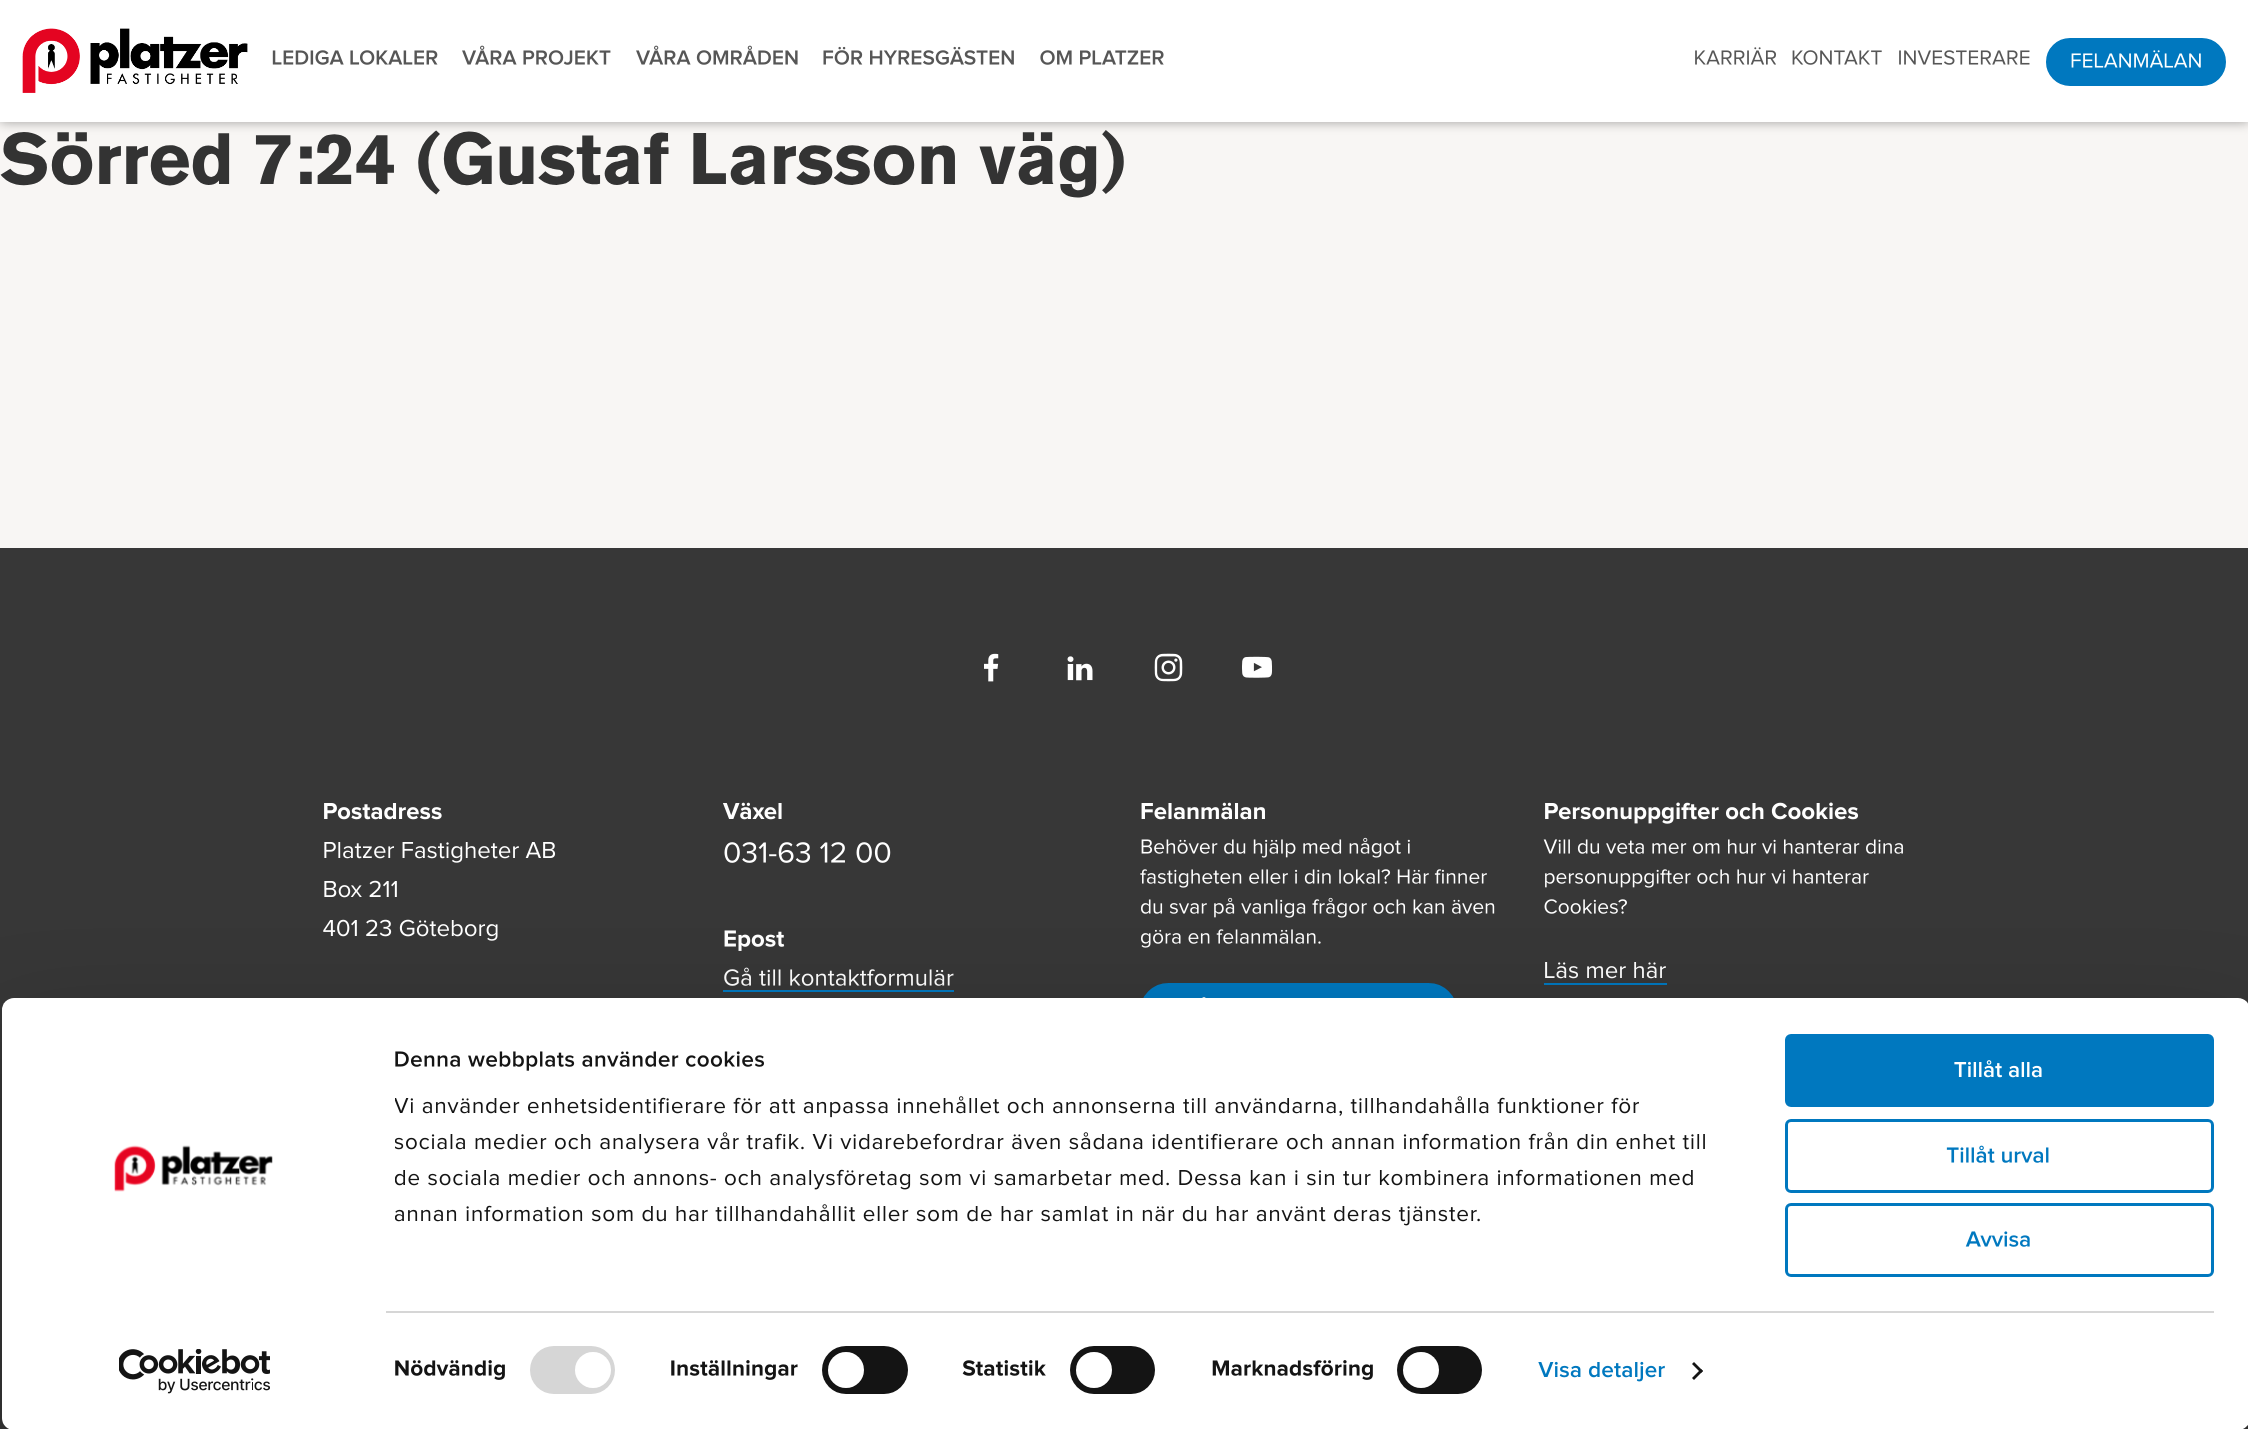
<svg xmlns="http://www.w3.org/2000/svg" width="2248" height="1429">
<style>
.a{font:bold 72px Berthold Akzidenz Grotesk;fill:#333}
</style>
<defs>
<clipPath id="clip1"><path d="M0 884h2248v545h-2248zm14 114h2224c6.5 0 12 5.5 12 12v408c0 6.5-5.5 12-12 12h-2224c-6.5 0-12-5.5-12-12v-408c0-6.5 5.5-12 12-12z" clip-rule="evenodd"/></clipPath>
</defs>
<rect width="100%" height="100%" fill="#f8f6f4"/>
<path fill="#0000005c" filter="blur(6px)" d="M0 0h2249v122H0z"/>
<path fill="#fff" d="M0 0h2248v122H0z"/>
<image href="1.png" x="22" y="28" width="226" height="65"/>
<image href="2.png" x="272" y="50" width="166" height="15"/>
<image href="3.png" x="462" y="45" width="149" height="20"/>
<image href="4.png" x="636" y="45" width="162" height="20"/>
<image href="5.png" x="823" y="46" width="191" height="19"/>
<image href="6.png" x="1040" y="50" width="124" height="15"/>
<image href="7.png" x="1695" y="47" width="81" height="18"/>
<image href="8.png" x="1792" y="50" width="90" height="15"/>
<image href="9.png" x="1899" y="50" width="131" height="15"/>
<rect fill="#0078bf" stroke="#0078bf" stroke-width="3" x="2047.5" y="39.5" width="177" height="45" rx="22.5"/>
<image href="10.png" x="2071" y="50" width="130" height="18"/>
<path fill="#373737" d="M0 548h2248v881H0z"/>
<image href="11.png" x="984" y="653" width="15" height="29"/>
<image href="12.png" x="1067" y="656" width="26" height="25"/>
<image href="13.png" x="1154" y="653" width="29" height="29"/>
<image href="14.png" x="1242" y="656" width="31" height="22"/>
<image href="15.png" x="324" y="803" width="118" height="17"/>
<image href="16.png" x="324" y="842" width="232" height="21"/>
<image href="17.png" x="324" y="880" width="73" height="18"/>
<image href="18.png" x="323" y="919" width="175" height="22"/>
<image href="19.png" x="723" y="802" width="59" height="18"/>
<image href="20.png" x="724" y="842" width="167" height="21"/>
<image href="21.png" x="724" y="930" width="61" height="21"/>
<image href="22.png" x="724" y="967" width="230" height="19"/>
<path fill="#0078bf" d="M723 990h231v2H723z"/>
<image href="23.png" x="1141" y="802" width="124" height="18"/>
<image href="24.png" x="1141" y="837" width="269" height="21"/>
<image href="25.png" x="1140" y="869" width="347" height="19"/>
<image href="26.png" x="1141" y="897" width="354" height="21"/>
<image href="27.png" x="1141" y="929" width="180" height="19"/>
<rect fill="#0078bf" stroke="#0078bf" stroke-width="3" x="1141.5" y="984.5" width="314" height="54" rx="27"/>
<image href="28.png" x="1202" y="997" width="4" height="1"/>
<image href="29.png" x="1545" y="802" width="314" height="22"/>
<image href="30.png" x="1543" y="839" width="360" height="15"/>
<image href="31.png" x="1545" y="869" width="324" height="19"/>
<image href="32.png" x="1544" y="899" width="83" height="15"/>
<image href="33.png" x="1545" y="962" width="121" height="17"/>
<path fill="#0078bf" d="M1544 983h123v2H1544z"/>
<g clip-path="url(#clip1)">
<rect fill="#0000004d" filter="blur(52.5px)" x="2" y="1043" width="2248" height="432" rx="12"/>
</g>
<rect fill="#fff" x="2" y="998" width="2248" height="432" rx="12"/>
<rect fill="#0078bf" stroke="#0078bf" stroke-width="3" x="1786.5" y="1035.5" width="426" height="70" rx="4.5"/>
<image href="34.png" x="1954" y="1060" width="88" height="18"/>
<rect fill="none" stroke="#0078bf" stroke-width="3" x="1786.5" y="1120.5" width="426" height="71" rx="4.5"/>
<image href="35.png" x="1946" y="1145" width="103" height="18"/>
<rect fill="none" stroke="#0078bf" stroke-width="3" x="1786.5" y="1204.5" width="426" height="71" rx="4.5"/>
<image href="36.png" x="1965" y="1231" width="65" height="16"/>
<image href="37.png" x="114" y="1145" width="159" height="47"/>
<image href="38.png" x="119" y="1349" width="151" height="45"/>
<image href="39.png" x="395" y="1051" width="369" height="20"/>
<image href="40.png" x="395" y="1096" width="1244" height="22"/>
<image href="41.png" x="395" y="1132" width="1310" height="22"/>
<image href="42.png" x="395" y="1169" width="1298" height="21"/>
<image href="43.png" x="395" y="1204" width="1085" height="22"/>
<path fill="#d6d6d6" d="M386 1311h1828v2H386z"/>
<image href="44.png" x="395" y="1360" width="110" height="20"/>
<rect fill="#d6d6d6" x="530" y="1346" width="85" height="48" rx="24"/>
<circle fill="#fff" cx="593" cy="1370" r="18"/>
<image href="45.png" x="671" y="1360" width="127" height="20"/>
<rect fill="#141414" x="822" y="1346" width="86" height="48" rx="24"/>
<circle fill="#fff" cx="846" cy="1370" r="18"/>
<image href="46.png" x="962" y="1360" width="84" height="16"/>
<rect fill="#141414" x="1070" y="1346" width="85" height="48" rx="24"/>
<circle fill="#fff" cx="1094" cy="1370" r="18"/>
<image href="47.png" x="1212" y="1360" width="161" height="20"/>
<rect fill="#141414" x="1397" y="1346" width="85" height="48" rx="24"/>
<circle fill="#fff" cx="1421" cy="1370" r="18"/>
<image href="48.png" x="1538" y="1361" width="127" height="21"/>
<path fill="#141414" d="M1694 1362l9 9l-2 2l-9-9z"/>
<path fill="#141414" d="M1701 1369l2 2l-9 9l-2-2z"/>
<text class="a" x="0" y="184">Sörred 7:24 (Gustaf Larsson väg)</text>
</svg>
